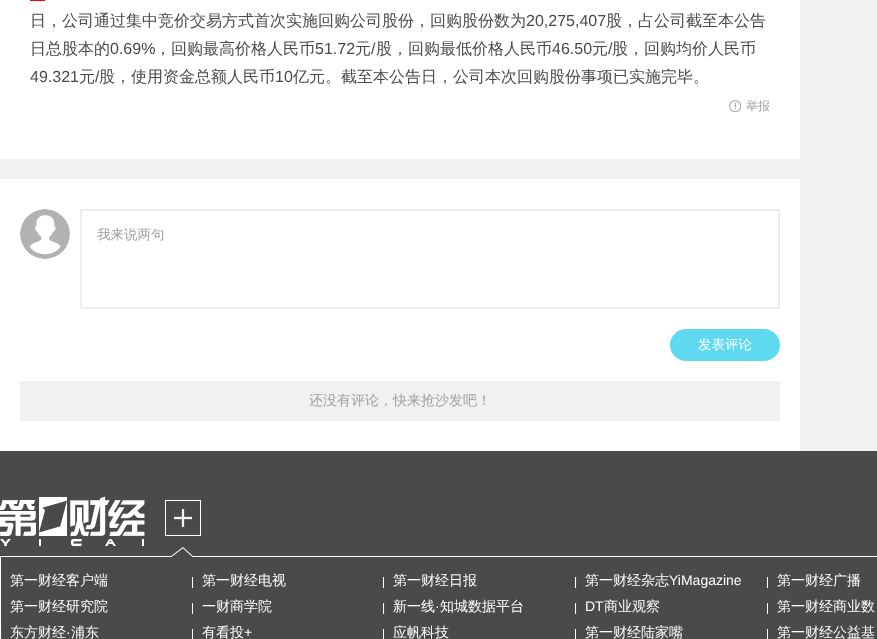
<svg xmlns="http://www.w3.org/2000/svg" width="877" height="639">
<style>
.a{font:500 16px WenQuanYi Zen Hei;fill:#4a4a4a}
.b{font:16px Liberation Sans;fill:#4a4a4a}
.c{font:500 12px WenQuanYi Zen Hei;fill:#9f9f9f}
.d{font:500 13.5px WenQuanYi Zen Hei;fill:#9f9f9f}
.e{font:500 13.5px WenQuanYi Zen Hei;fill:#fff}
.f{font:500 14px WenQuanYi Zen Hei;fill:#9f9f9f}
.g{font:500 14px WenQuanYi Zen Hei;fill:#fff}
.h{font:14px Liberation Sans;fill:#fff}
</style>
<rect width="100%" height="100%" fill="#f1f1f1"/>
<path fill="#fff" d="M0 0h800v159H0z"/>
<path fill="#ff0300" d="M30 0h15v1H30z"/>
<image href="1.png" x="729" y="100" width="12" height="12"/>
<path fill="#fff" d="M0 179h800v272H0z"/>
<image href="2.png" x="20" y="209" width="50" height="50"/>
<path fill="none" stroke="#ededed" stroke-width="2" d="M81 210h698v98H81z"/>
<rect fill="#5fd9f0" x="670" y="329" width="110" height="32" rx="16"/>
<path fill="#f1f1f1" d="M20 381h760v40H20z"/>
<path fill="#4a4a4a" d="M0 451h877v188H0z"/>
<image href="3.png" x="0" y="496" width="201" height="50"/>
<path fill="none" stroke="#fff" d="M0.5 556.5h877v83H0.5z"/>
<image href="4.png" x="171" y="547" width="22" height="10"/>
<path fill="#fff" d="M192 577h1v11H192z"/>
<path fill="#fff" d="M383 577h1v11H383z"/>
<image href="5.png" x="575" y="577" width="2" height="11"/>
<path fill="#fff" d="M767 577h1v11H767z"/>
<path fill="#fff" d="M192 603h1v11H192z"/>
<image href="5.png" x="383" y="603" width="2" height="11"/>
<image href="5.png" x="575" y="603" width="2" height="11"/>
<path fill="#fff" d="M767 603h1v11H767z"/>
<path fill="#555" d="M1 629h1v10H1z"/>
<path fill="#fff" d="M192 629h1v10H192z"/>
<path fill="#fff" d="M383 629h1v10H383z"/>
<path fill="#fff" d="M575 629h1v10H575z"/>
<path fill="#fff" d="M767 629h1v10H767z"/>
<text class="a" x="30" y="26">日，公司通过集中竞价交易方式首次实施回购公司股份，回购股份数为</text>
<text class="b" x="526" y="26">20,275,407</text>
<text class="a" x="606" y="26">股，占公司截至本公告</text>
<text class="a" x="30" y="54">日总股本的</text>
<text class="b" x="110" y="54">0.69%</text>
<text class="a" x="155" y="54">，回购最高价格人民币</text>
<text class="b" x="315" y="54">51.72</text>
<text class="a" x="355" y="54">元</text>
<text class="b" x="371" y="54">/</text>
<text class="a" x="376" y="54">股，回购最低价格人民币</text>
<text class="b" x="552" y="54">46.50</text>
<text class="a" x="592" y="54">元</text>
<text class="b" x="608" y="54">/</text>
<text class="a" x="612" y="54">股，回购均价人民币</text>
<text class="b" x="30" y="82">49.321</text>
<text class="a" x="79" y="82">元</text>
<text class="b" x="95" y="82">/</text>
<text class="a" x="99" y="82">股，使用资金总额人民币</text>
<text class="b" x="275" y="82">10</text>
<text class="a" x="293" y="82">亿元。截至本公告日，公司本次回购股份事项已实施完毕。</text>
<text class="c" x="746" y="110">举报</text>
<text class="d" x="97" y="239">我来说两句</text>
<text class="e" x="698" y="349">发表评论</text>
<text class="f" x="309" y="405">还没有评论，快来抢沙发吧！</text>
<text class="g" x="10" y="585">第一财经客户端</text>
<text class="g" x="202" y="585">第一财经电视</text>
<text class="g" x="393" y="585">第一财经日报</text>
<text class="g" x="585" y="585">第一财经杂志</text>
<text class="h" x="669" y="585">YiMagazine</text>
<text class="g" x="777" y="585">第一财经广播</text>
<text class="g" x="10" y="611">第一财经研究院</text>
<text class="g" x="202" y="611">一财商学院</text>
<text class="g" x="393" y="611">新一线</text>
<text class="h" x="435" y="611">·</text>
<text class="g" x="440" y="611">知城数据平台</text>
<text class="h" x="585" y="611">DT</text>
<text class="g" x="604" y="611">商业观察</text>
<text class="g" x="777" y="611">第一财经商业数</text>
<text class="g" x="10" y="637">东方财经</text>
<text class="h" x="66" y="637">·</text>
<text class="g" x="71" y="637">浦东</text>
<text class="g" x="202" y="637">有看投</text>
<text class="h" x="244" y="637">+</text>
<text class="g" x="393" y="637">应帆科技</text>
<text class="g" x="585" y="637">第一财经陆家嘴</text>
<text class="g" x="777" y="637">第一财经公益基</text>
</svg>
